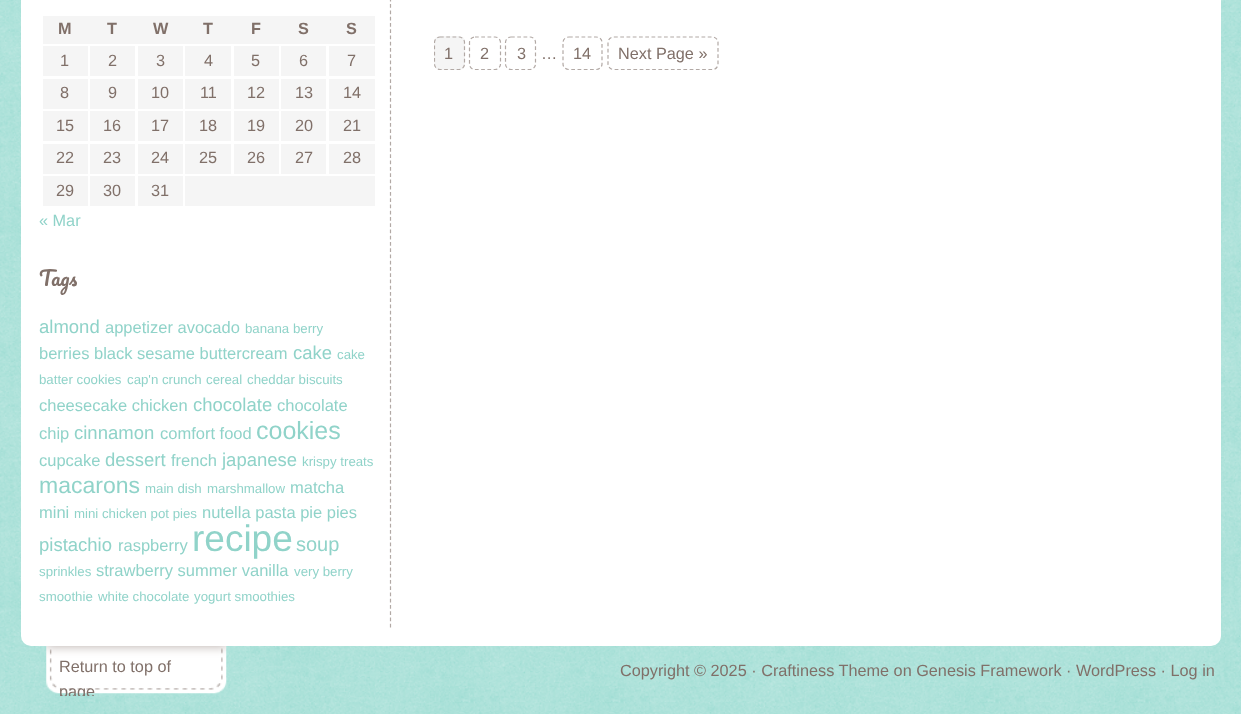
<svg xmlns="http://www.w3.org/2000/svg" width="1241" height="714">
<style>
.a{font:bold 16.25px Liberation Sans;fill:#807069}
.b{font:16.25px Liberation Sans;fill:#807069}
.c{font:16.25px Liberation Sans;fill:#90d3c9}
.d{font:20px Pacifico;fill:#807069}
.e{font:18.5px Liberation Sans;fill:#90d3c9}
.f{font:16.5px Liberation Sans;fill:#90d3c9}
.g{font:13.25px Liberation Sans;fill:#90d3c9}
.h{font:25px Liberation Sans;fill:#90d3c9}
.i{font:23px Liberation Sans;fill:#90d3c9}
.j{font:37px Liberation Sans;fill:#90d3c9}
.k{font:20px Liberation Sans;fill:#90d3c9}
</style>
<defs>
<clipPath id="clip1"><path d="M434 16h762v75H434z"/></clipPath>
<clipPath id="clip2"><path d="M28 646h1187v50H28z"/></clipPath>
</defs>
<rect width="100%" height="100%" fill="#fff"/>
<image href="1.png" x="0" y="0" width="1241" height="714"/>
<rect fill="#fff" x="21" y="-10" width="1200" height="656" rx="10"/>
<path fill="none" stroke="#b2a9a5" stroke-width="1.2" stroke-dasharray="3.75 2.51" d="M390.5-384v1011.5"/>
<path fill="#f5f5f5" d="M43 16h332v28H43z"/>
<path fill="#f5f5f5" d="M43 46h45v30H43z"/>
<path fill="#f5f5f5" d="M90 46h45v30H90z"/>
<path fill="#f5f5f5" d="M138 46h45v30H138z"/>
<path fill="#f5f5f5" d="M185 46h46v30H185z"/>
<path fill="#f5f5f5" d="M234 46h45v30H234z"/>
<path fill="#f5f5f5" d="M281 46h45v30H281z"/>
<path fill="#f5f5f5" d="M329 46h46v30H329z"/>
<path fill="#f5f5f5" d="M43 79h45v30H43z"/>
<path fill="#f5f5f5" d="M90 79h45v30H90z"/>
<path fill="#f5f5f5" d="M138 79h45v30H138z"/>
<path fill="#f5f5f5" d="M185 79h46v30H185z"/>
<path fill="#f5f5f5" d="M234 79h45v30H234z"/>
<path fill="#f5f5f5" d="M281 79h45v30H281z"/>
<path fill="#f5f5f5" d="M329 79h46v30H329z"/>
<path fill="#f5f5f5" d="M43 111h45v30H43z"/>
<path fill="#f5f5f5" d="M90 111h45v30H90z"/>
<path fill="#f5f5f5" d="M138 111h45v30H138z"/>
<path fill="#f5f5f5" d="M185 111h46v30H185z"/>
<path fill="#f5f5f5" d="M234 111h45v30H234z"/>
<path fill="#f5f5f5" d="M281 111h45v30H281z"/>
<path fill="#f5f5f5" d="M329 111h46v30H329z"/>
<path fill="#f5f5f5" d="M43 144h45v30H43z"/>
<path fill="#f5f5f5" d="M90 144h45v30H90z"/>
<path fill="#f5f5f5" d="M138 144h45v30H138z"/>
<path fill="#f5f5f5" d="M185 144h46v30H185z"/>
<path fill="#f5f5f5" d="M234 144h45v30H234z"/>
<path fill="#f5f5f5" d="M281 144h45v30H281z"/>
<path fill="#f5f5f5" d="M329 144h46v30H329z"/>
<path fill="#f5f5f5" d="M43 176h45v30H43z"/>
<path fill="#f5f5f5" d="M90 176h45v30H90z"/>
<path fill="#f5f5f5" d="M138 176h45v30H138z"/>
<path fill="#f5f5f5" d="M185 176h190v30H185z"/>
<rect fill="#f5f5f5" x="434" y="36" width="31" height="34" rx="6"/>
<g clip-path="url(#clip1)">
<path fill="none" stroke="#b2a9a5" stroke-width="1.2" stroke-dasharray="3.75 2.5" d="M440 37h19c3 0 5.5 2.5 5.5 5.5v21.5c0 3-2.5 5.5-5.5 5.5h-19c-3 0-5.5-2.5-5.5-5.5v-21.5c0-3 2.5-5.5 5.5-5.5z"/>
</g>
<path fill="none" stroke="#b2a9a5" stroke-width="1.2" stroke-dasharray="3.75 2.5" d="M475 37h20c3 0 5.5 2.5 5.5 5.5v21.5c0 3-2.5 5.5-5.5 5.5h-20c-3 0-5.5-2.5-5.5-5.5v-21.5c0-3 2.5-5.5 5.5-5.5z"/>
<path fill="none" stroke="#b2a9a5" stroke-width="1.2" stroke-dasharray="3.75 2.5" d="M511 37h19c3 0 5.5 2.5 5.5 5.5v21.5c0 3-2.5 5.5-5.5 5.5h-19c-3 0-5.5-2.5-5.5-5.5v-21.5c0-3 2.5-5.5 5.5-5.5z"/>
<path fill="none" stroke="#b2a9a5" stroke-width="1.2" stroke-dasharray="3.75 2.5" d="M569 37h27c3.5 0 6 2.5 6 5.5v21.5c0 3-2.5 5.5-6 5.5h-27c-3.5 0-6-2.5-6-5.5v-21.5c0-3 2.5-5.5 6-5.5z"/>
<path fill="none" stroke="#b2a9a5" stroke-width="1.2" stroke-dasharray="3.75 2.5" d="M614 37h98.5c3 0 5.5 2.5 5.5 5.5v21.5c0 3-2.5 5.5-5.5 5.5h-98.5c-3.5 0-6-2.5-6-5.5v-21.5c0-3 2.5-5.5 6-5.5z"/>
<image href="2.png" x="46" y="646" width="181" height="48"/>
<text class="a" x="58" y="34">M</text>
<text class="a" x="107" y="34">T</text>
<text class="a" x="153" y="34">W</text>
<text class="a" x="203" y="34">T</text>
<text class="a" x="251" y="34">F</text>
<text class="a" x="298" y="34">S</text>
<text class="a" x="346" y="34">S</text>
<text class="b" x="60" y="66">1</text>
<text class="b" x="108" y="66">2</text>
<text class="b" x="156" y="66">3</text>
<text class="b" x="204" y="66">4</text>
<text class="b" x="251" y="66">5</text>
<text class="b" x="299" y="66">6</text>
<text class="b" x="347" y="66">7</text>
<text class="b" x="60" y="98">8</text>
<text class="b" x="108" y="98">9</text>
<text class="b" x="151" y="98">10</text>
<text class="b" x="200" y="98">11</text>
<text class="b" x="247" y="98">12</text>
<text class="b" x="295" y="98">13</text>
<text class="b" x="343" y="98">14</text>
<text class="b" x="56" y="131">15</text>
<text class="b" x="103" y="131">16</text>
<text class="b" x="151" y="131">17</text>
<text class="b" x="199" y="131">18</text>
<text class="b" x="247" y="131">19</text>
<text class="b" x="295" y="131">20</text>
<text class="b" x="343" y="131">21</text>
<text class="b" x="56" y="163">22</text>
<text class="b" x="103" y="163">23</text>
<text class="b" x="151" y="163">24</text>
<text class="b" x="199" y="163">25</text>
<text class="b" x="247" y="163">26</text>
<text class="b" x="295" y="163">27</text>
<text class="b" x="343" y="163">28</text>
<text class="b" x="56" y="196">29</text>
<text class="b" x="103" y="196">30</text>
<text class="b" x="151" y="196">31</text>
<text class="c" x="39" y="226">« Mar</text>
<text class="d" x="39" y="286">Tags</text>
<text class="e" x="39" y="333">almond</text>
<text class="f" x="105" y="333">appetizer avocado</text>
<text class="g" x="245" y="333">banana berry</text>
<text class="f" x="39" y="359">berries black sesame buttercream</text>
<text class="e" x="293" y="359">cake</text>
<text class="g" x="337" y="359">cake</text>
<text class="g" x="39" y="384">batter cookies</text>
<text class="g" x="127" y="384">cap'n crunch</text>
<text class="g" x="206" y="384">cereal</text>
<text class="g" x="247" y="384">cheddar biscuits</text>
<text class="f" x="39" y="411">cheesecake chicken</text>
<text class="e" x="193" y="411">chocolate</text>
<text class="f" x="277" y="411">chocolate</text>
<text class="f" x="39" y="439">chip</text>
<text class="e" x="74" y="439">cinnamon</text>
<text class="f" x="160" y="439">comfort food</text>
<text class="h" x="256" y="439">cookies</text>
<text class="f" x="39" y="466">cupcake</text>
<text class="e" x="105" y="466">dessert</text>
<text class="f" x="171" y="466">french</text>
<text class="e" x="222" y="466">japanese</text>
<text class="g" x="302" y="466">krispy treats</text>
<text class="i" x="39" y="493">macarons</text>
<text class="g" x="145" y="493">main dish</text>
<text class="g" x="207" y="493">marshmallow</text>
<text class="f" x="290" y="493">matcha</text>
<text class="f" x="39" y="518">mini</text>
<text class="g" x="74" y="518">mini chicken pot pies</text>
<text class="f" x="202" y="518">nutella pasta pie pies</text>
<text class="e" x="39" y="551">pistachio</text>
<text class="f" x="118" y="551">raspberry</text>
<text class="j" x="192" y="551">recipe</text>
<text class="k" x="296" y="551">soup</text>
<text class="g" x="39" y="576">sprinkles</text>
<text class="f" x="96" y="576">strawberry summer vanilla</text>
<text class="g" x="294" y="576">very berry</text>
<text class="g" x="39" y="601">smoothie</text>
<text class="g" x="98" y="601">white chocolate</text>
<text class="g" x="194" y="601">yogurt smoothies</text>
<text class="b" x="444" y="59">1</text>
<text class="b" x="480" y="59">2</text>
<text class="b" x="517" y="59">3</text>
<text class="b" x="541" y="59">…</text>
<text class="b" x="573" y="59">14</text>
<text class="b" x="618" y="59">Next Page »</text>
<text class="b" x="59" y="672">Return to top of</text>
<g clip-path="url(#clip2)">
<text class="b" x="59" y="697">page</text>
</g>
<text class="b" x="620" y="676">Copyright © 2025 · Craftiness Theme on Genesis Framework · WordPress · Log in</text>
</svg>
